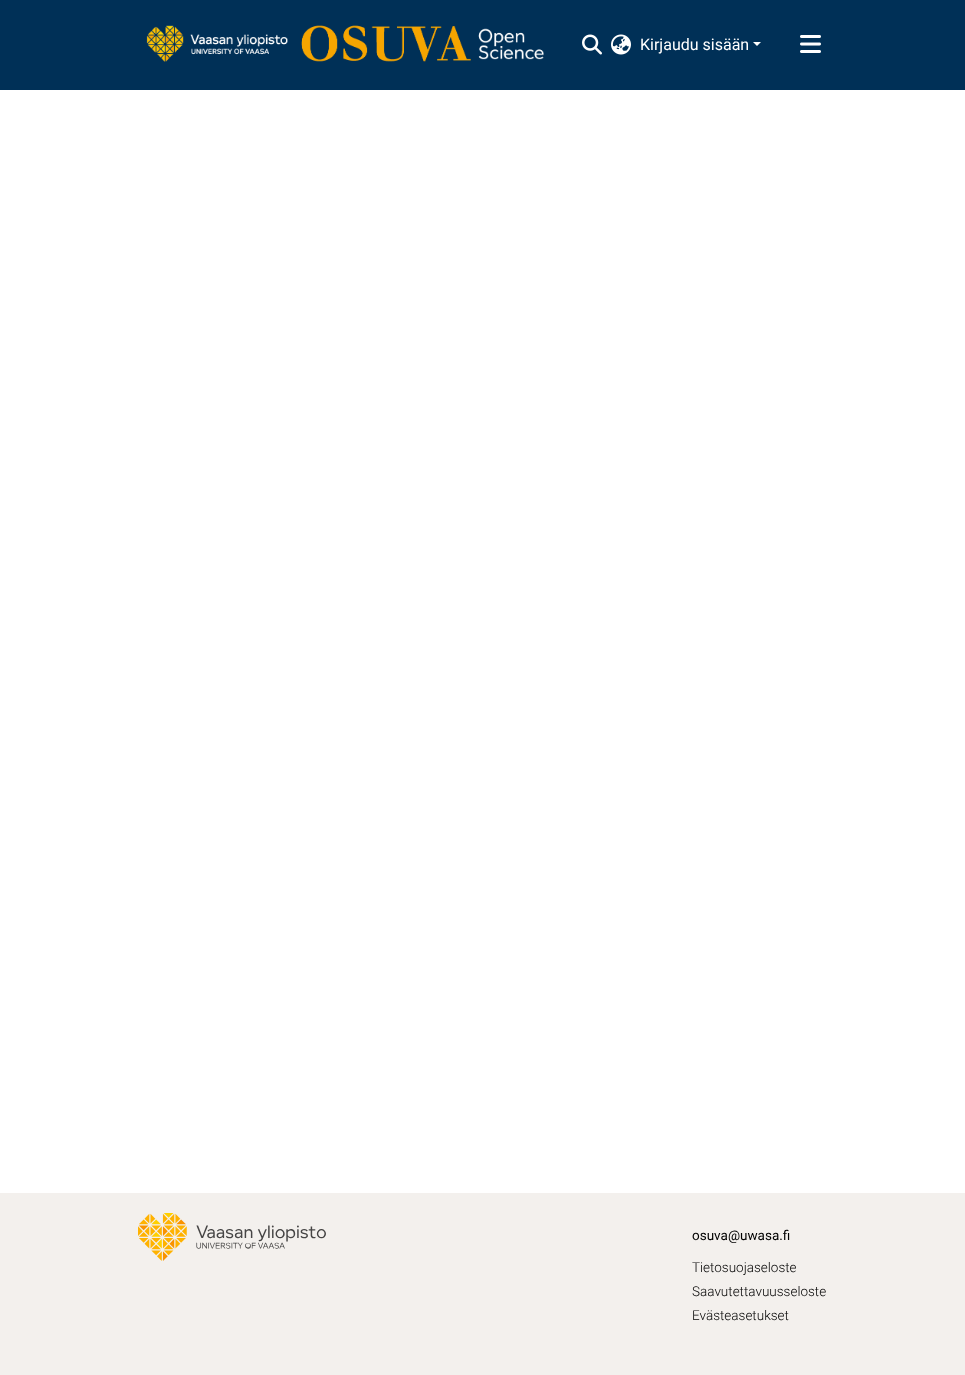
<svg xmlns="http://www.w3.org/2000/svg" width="965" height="1375">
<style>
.a{font:16px Roboto;fill:#fff}
.b{font:13.5px Roboto;fill:#000}
.c{font:300 13.5px Roboto;fill:#000}
</style>
<rect width="100%" height="100%" fill="#fff"/>
<path fill="#003057" d="M0 0h965v90H0z"/>
<image href="1.png" x="146" y="25" width="398" height="37"/>
<image href="2.png" x="582" y="34" width="20" height="21"/>
<image href="3.png" x="611" y="34" width="20" height="21"/>
<path fill="#fff" d="M753 42h8l-4 4z"/>
<image href="4.png" x="800" y="35" width="21" height="18"/>
<path fill="#f3f0ed" d="M0 1193h965v182H0z"/>
<image href="5.png" x="138" y="1213" width="188" height="48"/>
<text class="a" x="640" y="50">Kirjaudu sisään</text>
<text class="b" x="692" y="1240">osuva@uwasa.fi</text>
<text class="c" x="692" y="1272">Tietosuojaseloste</text>
<text class="c" x="692" y="1296">Saavutettavuusseloste</text>
<text class="c" x="692" y="1320">Evästeasetukset</text>
</svg>
